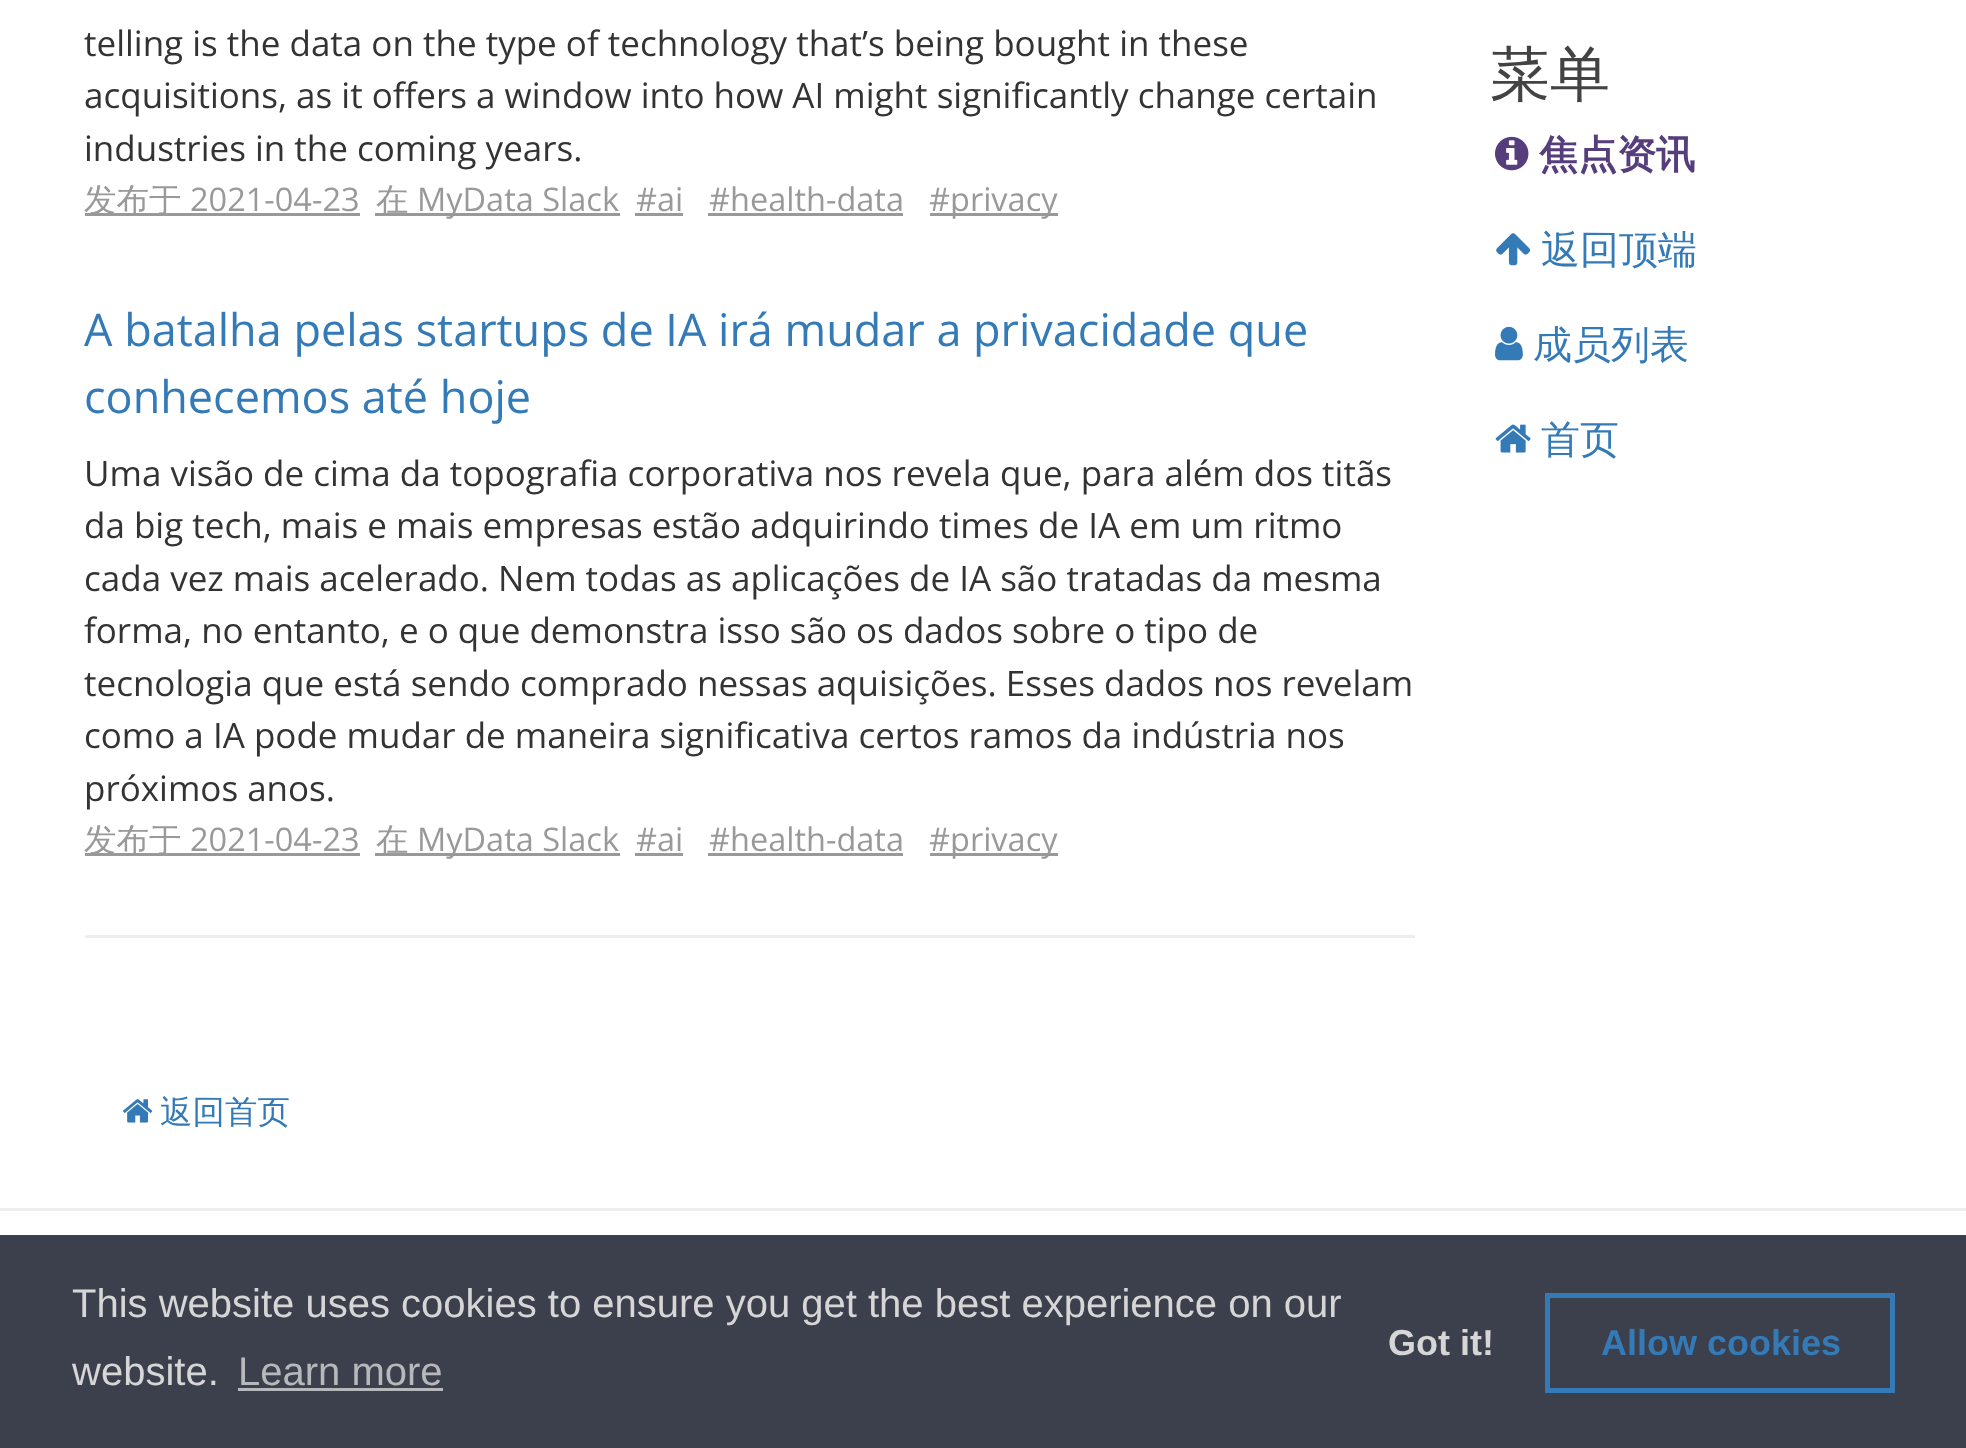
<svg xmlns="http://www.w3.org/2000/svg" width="1966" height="1448">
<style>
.a{font:35px Open Sans;fill:#333}
.b{font:500 32.5px WenQuanYi Zen Hei;fill:#999}
.c{font:32.5px Open Sans;fill:#999}
.d{font:45px Open Sans;fill:#337ab7}
.e{font:500 60px WenQuanYi Zen Hei;fill:#434343}
.f{font:bold 39px WenQuanYi Zen Hei;fill:#563d7c}
.g{font:500 39px WenQuanYi Zen Hei;fill:#337ab7}
.h{font:500 32.5px WenQuanYi Zen Hei;fill:#337ab7}
.i{font:40px Liberation Sans;fill:#d6d6d6}
.j{font:40px Liberation Sans;fill:#b7b8bb}
.k{font:bold 36px Liberation Sans;fill:#d6d6d6}
.l{font:bold 36px Liberation Sans;fill:#337ab7}
</style>
<rect width="100%" height="100%" fill="#fff"/>
<path fill="#999" d="M85 213h275v3H85z"/>
<path fill="#999" d="M375 213h245v3H375z"/>
<path fill="#999" d="M635 213h48v3H635z"/>
<path fill="#999" d="M708 213h195v3H708z"/>
<path fill="#999" d="M930 213h128v3H930z"/>
<path fill="#999" d="M85 853h275v3H85z"/>
<path fill="#999" d="M375 853h245v3H375z"/>
<path fill="#999" d="M635 853h48v3H635z"/>
<path fill="#999" d="M708 853h195v3H708z"/>
<path fill="#999" d="M930 853h128v3H930z"/>
<path fill="#eee" d="M85 935h1330v3H85z"/>
<image href="1.png" x="1495" y="136" width="34" height="35"/>
<image href="2.png" x="1496" y="233" width="34" height="33"/>
<image href="3.png" x="1495" y="326" width="28" height="35"/>
<image href="4.png" x="1495" y="424" width="36" height="29"/>
<image href="5.png" x="123" y="1099" width="30" height="24"/>
<path fill="#eee" d="M0 1208h1966v3H0z"/>
<path fill="#3c404d" d="M0 1235h1966v213H0z"/>
<path fill="#b7b8bb" d="M238 1388h205v3H238z"/>
<path fill="none" stroke="#337ab7" stroke-width="5" d="M1547.5 1295.5h345v95H1547.5z"/>
<text class="a" x="84" y="56">telling is the data on the type of technology that’s being bought in these</text>
<text class="a" x="84" y="108">acquisitions, as it offers a window into how AI might significantly change certain</text>
<text class="a" x="84" y="161">industries in the coming years.</text>
<text class="b" x="84" y="211">发布于</text>
<text class="c" x="190" y="211">2021-04-23</text>
<text class="b" x="376" y="211">在</text>
<text class="c" x="417" y="211">MyData Slack</text>
<text class="c" x="636" y="211">#ai</text>
<text class="c" x="709" y="211">#health-data</text>
<text class="c" x="929" y="211">#privacy</text>
<text class="d" x="84" y="346">A batalha pelas startups de IA irá mudar a privacidade que</text>
<text class="d" x="84" y="413">conhecemos até hoje</text>
<text class="a" x="84" y="486">Uma visão de cima da topografia corporativa nos revela que, para além dos titãs</text>
<text class="a" x="84" y="538">da big tech, mais e mais empresas estão adquirindo times de IA em um ritmo</text>
<text class="a" x="84" y="591">cada vez mais acelerado. Nem todas as aplicações de IA são tratadas da mesma</text>
<text class="a" x="84" y="643">forma, no entanto, e o que demonstra isso são os dados sobre o tipo de</text>
<text class="a" x="84" y="696">tecnologia que está sendo comprado nessas aquisições. Esses dados nos revelam</text>
<text class="a" x="84" y="748">como a IA pode mudar de maneira significativa certos ramos da indústria nos</text>
<text class="a" x="84" y="801">próximos anos.</text>
<text class="b" x="84" y="851">发布于</text>
<text class="c" x="190" y="851">2021-04-23</text>
<text class="b" x="376" y="851">在</text>
<text class="c" x="417" y="851">MyData Slack</text>
<text class="c" x="636" y="851">#ai</text>
<text class="c" x="709" y="851">#health-data</text>
<text class="c" x="929" y="851">#privacy</text>
<text class="e" x="1490" y="95">菜单</text>
<text class="f" x="1539" y="168">焦点资讯</text>
<text class="g" x="1541" y="263">返回顶端</text>
<text class="g" x="1533" y="358">成员列表</text>
<text class="g" x="1541" y="453">首页</text>
<text class="h" x="160" y="1123">返回首页</text>
<text class="i" x="72" y="1317">This website uses cookies to ensure you get the best experience on our</text>
<text class="i" x="72" y="1385">website.</text>
<text class="j" x="238" y="1385">Learn more</text>
<text class="k" x="1388" y="1355">Got it!</text>
<text class="l" x="1601" y="1355">Allow cookies</text>
</svg>
